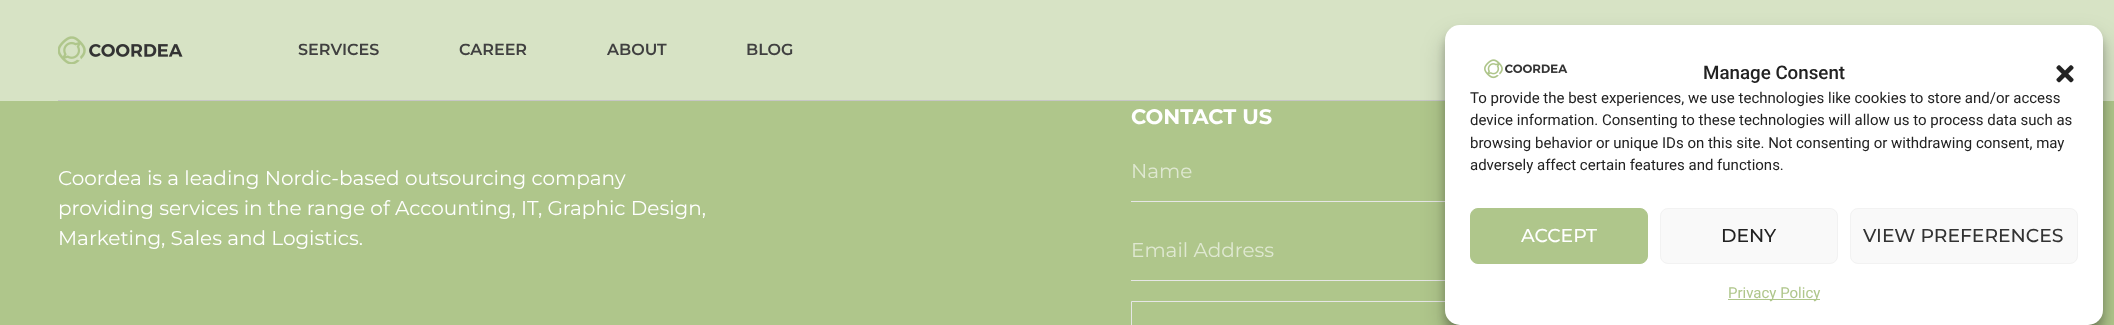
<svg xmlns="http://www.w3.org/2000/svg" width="2114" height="325">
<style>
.a{font:600 16px Montserrat;fill:#404040}
.b{font:20px Montserrat;fill:#fff}
.c{font:bold 21px Montserrat;fill:#fff}
.d{font:20px Montserrat;fill:#dfe8d1}
.e{font:500 18.75px Roboto;fill:#222}
.f{font:15px Roboto;fill:#222}
.g{font:500 18.75px Montserrat;fill:#fff}
.h{font:500 18.75px Montserrat;fill:#222}
.i{font:500 18.75px Montserrat;fill:#333}
.j{font:15px Roboto;fill:#afc68b}
</style>
<rect width="100%" height="100%" fill="#afc68b"/>
<path fill="#d7e3c5" d="M0 0h2114v101H0z"/>
<path fill="#c6c6c6" d="M58 100h1387v1H58z"/>
<image href="1.png" x="58" y="36" width="125" height="28"/>
<path fill="#e6e6e6" d="M1131 201h314v1H1131z"/>
<path fill="#e6e6e6" d="M1131 280h314v1H1131z"/>
<path fill="none" stroke="#e6e6e6" d="M1131.5 301.5h643v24H1131.5z"/>
<rect fill="#0000003b" filter="blur(4px)" x="1445" y="33" width="658" height="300" rx="15"/>
<rect fill="#00000030" filter="blur(12.5px)" x="1445" y="38" width="658" height="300" rx="15"/>
<rect fill="#fff" x="1445" y="25" width="658" height="300" rx="15"/>
<image href="2.png" x="1484" y="59" width="84" height="20"/>
<image href="3.png" x="2056" y="65" width="18" height="18"/>
<rect fill="#afc68b" stroke="#afc68b" x="1470.5" y="208.5" width="177" height="55" rx="7.5"/>
<rect fill="#f9f9f9" stroke="#f2f2f2" x="1660.5" y="208.5" width="177" height="55" rx="7.5"/>
<rect fill="#f9f9f9" stroke="#f2f2f2" x="1850.5" y="208.5" width="227" height="55" rx="7.5"/>
<path fill="#afc68b" d="M1728 299h92v1H1728z"/>
<text class="a" x="298" y="55">SERVICES</text>
<text class="a" x="459" y="55">CAREER</text>
<text class="a" x="607" y="55">ABOUT</text>
<text class="a" x="746" y="55">BLOG</text>
<text class="b" x="58" y="185">Coordea is a leading Nordic-based outsourcing company</text>
<text class="b" x="58" y="215">providing services in the range of Accounting, IT, Graphic Design,</text>
<text class="b" x="58" y="245">Marketing, Sales and Logistics.</text>
<text class="c" x="1131" y="124">CONTACT US</text>
<text class="d" x="1131" y="178">Name</text>
<text class="d" x="1131" y="257">Email Address</text>
<text class="e" x="1703" y="79">Manage Consent</text>
<text class="f" x="1470" y="103">To provide the best experiences, we use technologies like cookies to store and/or access</text>
<text class="f" x="1470" y="125">device information. Consenting to these technologies will allow us to process data such as</text>
<text class="f" x="1470" y="148">browsing behavior or unique IDs on this site. Not consenting or withdrawing consent, may</text>
<text class="f" x="1470" y="170">adversely affect certain features and functions.</text>
<text class="g" x="1521" y="242">ACCEPT</text>
<text class="h" x="1721" y="242">DENY</text>
<text class="i" x="1863" y="242">VIEW PREFERENCES</text>
<text class="j" x="1728" y="298">Privacy Policy</text>
</svg>
